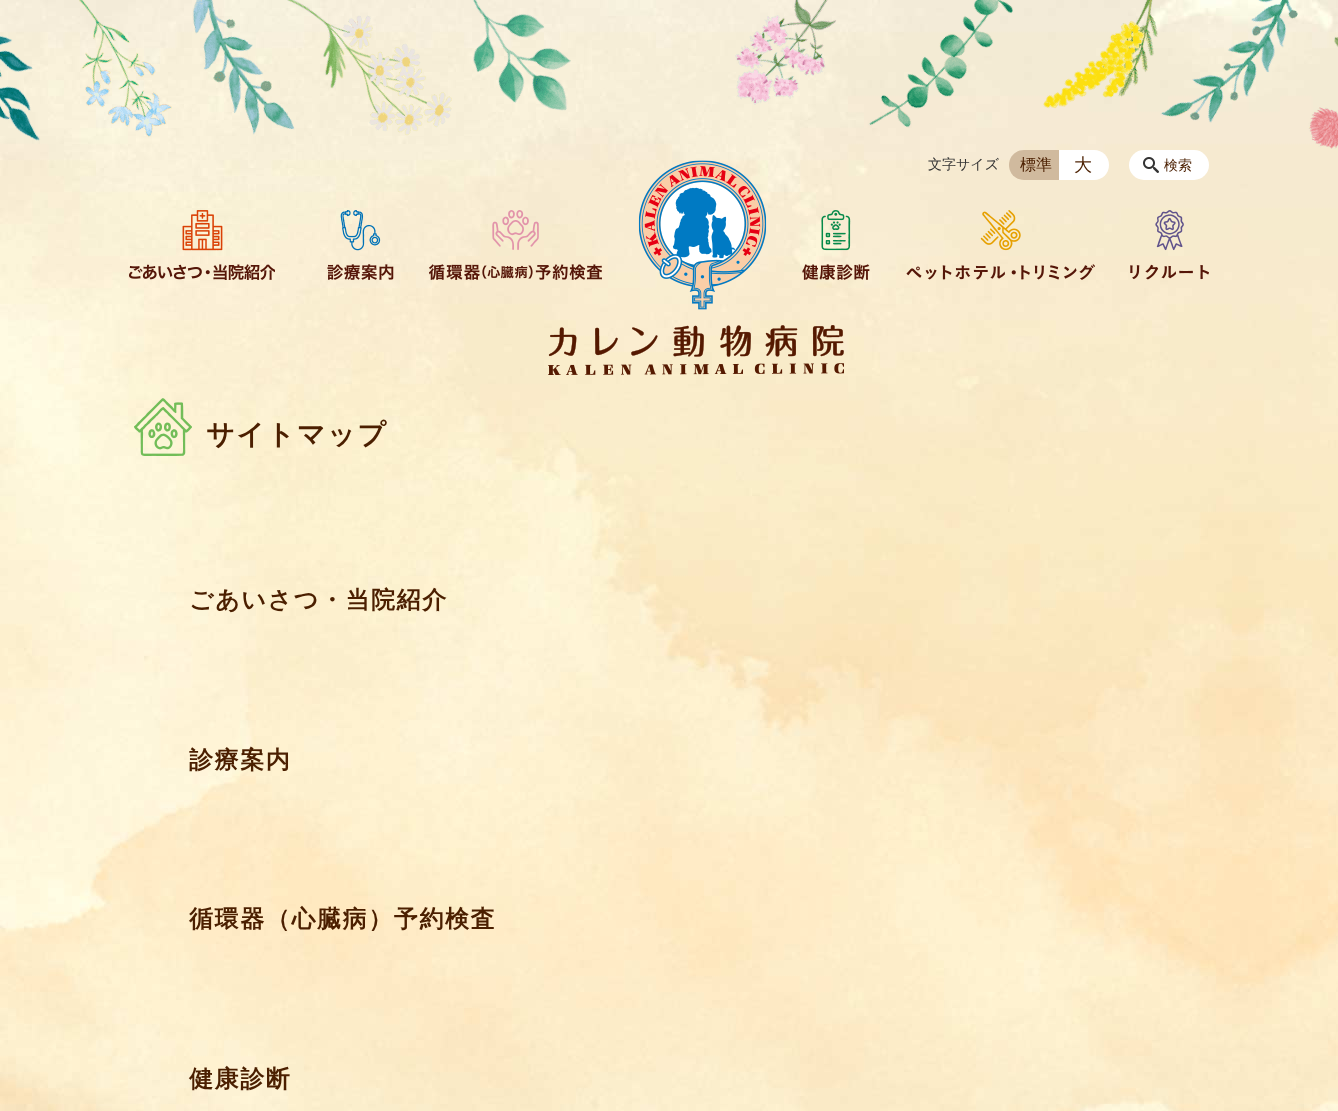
<svg xmlns="http://www.w3.org/2000/svg" width="1338" height="1111">
<style>
.a{font:500 14px WenQuanYi Zen Hei;fill:#333}
.b{font:500 16px WenQuanYi Zen Hei;fill:#4b1f00}
.c{font:500 18px WenQuanYi Zen Hei;fill:#4b1f00}
.d{font:500 14px WenQuanYi Zen Hei;fill:#4b1f00}
.e{font:bold 28px WenQuanYi Zen Hei;letter-spacing:1.6px;fill:#4b1f00}
.f{font:bold 24px WenQuanYi Zen Hei;letter-spacing:1.6px;fill:#4b1f00}
</style>
<rect width="100%" height="100%" fill="#fff"/>
<image href="1.png" x="0" y="0" width="1338" height="1111"/>
<image href="2.png" x="0" y="0" width="1338" height="149"/>
<path fill="#d0ba9e" d="M1024 150h35v30h-35c-8.5 0-15-6.5-15-15c0-8.5 6.5-15 15-15z"/>
<path fill="#fff" d="M1059 150h35c8.5 0 15 6.5 15 15c0 8.5-6.5 15-15 15h-35z"/>
<rect fill="#fff" x="1129" y="150" width="80" height="30" rx="15"/>
<image href="3.png" x="1143" y="157" width="16" height="16"/>
<image href="4.png" x="129" y="210" width="146" height="70"/>
<image href="5.png" x="327" y="210" width="67" height="70"/>
<image href="6.png" x="429" y="210" width="173" height="70"/>
<image href="7.png" x="638" y="160" width="129" height="150"/>
<image href="8.png" x="802" y="210" width="68" height="70"/>
<image href="9.png" x="906" y="210" width="189" height="70"/>
<image href="10.png" x="1130" y="210" width="79" height="70"/>
<image href="11.png" x="548" y="325" width="296" height="50"/>
<image href="12.png" x="134" y="398" width="58" height="58"/>
<text class="a" x="928" y="169">文字サイズ</text>
<text class="b" x="1020" y="170">標準</text>
<text class="c" x="1074" y="171">大</text>
<text class="d" x="1164" y="170">検索</text>
<text class="e" x="206" y="444">サイトマップ</text>
<text class="f" x="189" y="608">ごあいさつ・当院紹介</text>
<text class="f" x="189" y="768">診療案内</text>
<text class="f" x="189" y="927">循環器（心臓病）予約検査</text>
<text class="f" x="189" y="1087">健康診断</text>
</svg>
